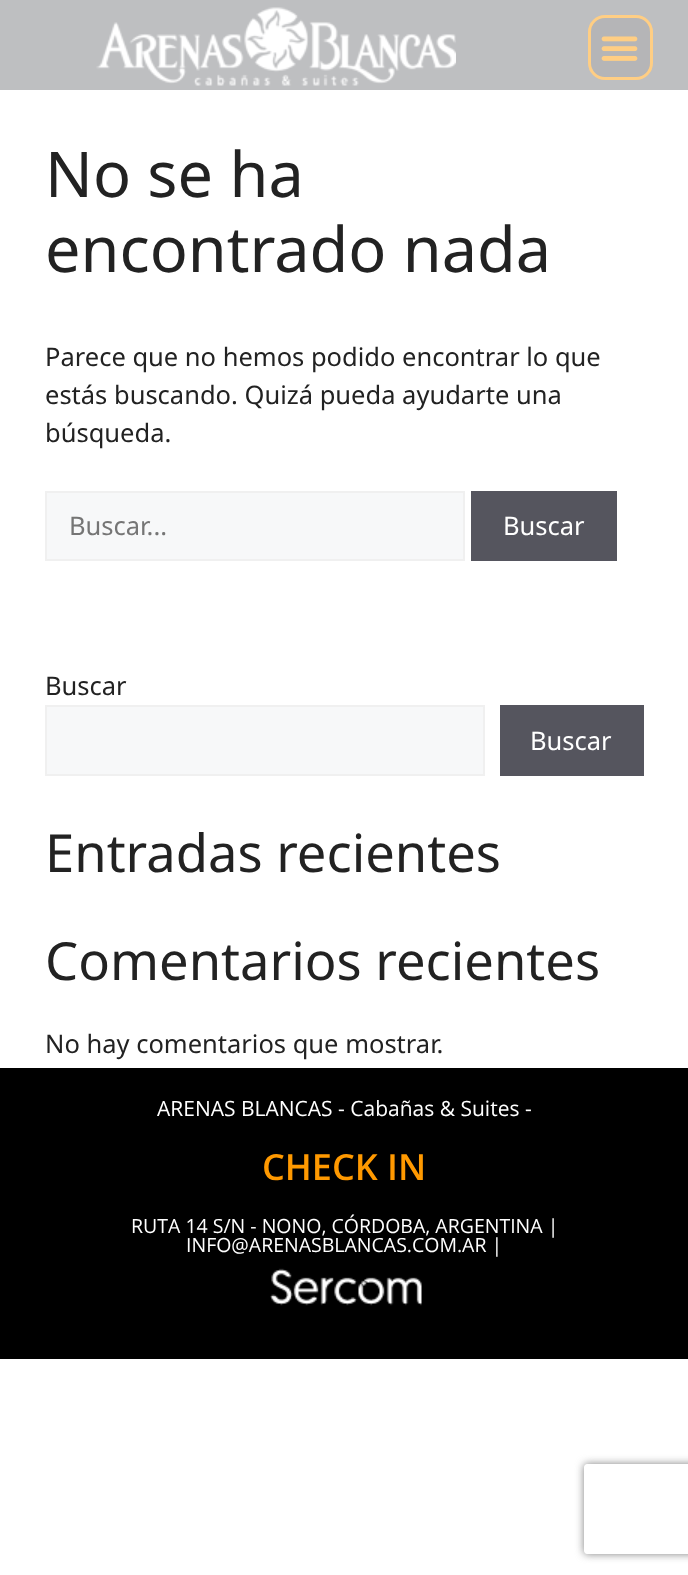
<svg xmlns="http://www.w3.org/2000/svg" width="688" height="1575">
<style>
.a{font:63px Noto Sans;fill:#222}
.b{font:25.5px Noto Sans;fill:#222}
.c{font:25.5px Noto Sans;fill:#757575}
.d{font:25.5px Noto Sans;fill:#fff}
.e{font:52.5px Noto Sans;fill:#222}
.f{font:21px Open Sans;fill:#fff}
.g{font:600 36px Open Sans;fill:#f90}
.h{font:19.5px Open Sans;fill:#fff}
</style>
<defs>
<clipPath id="clip1"><path d="M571 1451h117v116h-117zm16 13h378c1.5 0 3 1.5 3 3v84c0 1.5-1.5 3-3 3h-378c-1.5 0-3-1.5-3-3v-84c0-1.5 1.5-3 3-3z" clip-rule="evenodd"/></clipPath>
</defs>
<rect width="100%" height="100%" fill="#fff"/>
<path fill="#bebfc1" d="M0 0h688v90H0z"/>
<image href="1.png" x="96" y="7" width="360" height="79"/>
<rect fill="#b5b5b7" stroke="#ffce84" stroke-width="3" x="589.5" y="16.5" width="62" height="62" rx="15.5"/>
<image href="2.png" x="601" y="36" width="37" height="25"/>
<path fill="#f7f8f9" stroke="#f0f0f0" stroke-width="2" d="M46 492h418v68H46z"/>
<path fill="#55555e" d="M471 491h146v70H471z"/>
<path fill="#f7f8f9" stroke="#f0f0f0" stroke-width="2" d="M46 706h438v69H46z"/>
<path fill="#55555e" d="M500 705h144v71H500z"/>
<path fill="#000" d="M0 1068h688v291H0z"/>
<image href="3.png" x="270" y="1268" width="152" height="38"/>
<g clip-path="url(#clip1)">
<rect fill="#808080" filter="blur(4px)" x="584" y="1464" width="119" height="90" rx="3"/>
</g>
<text class="a" x="45" y="197">No se ha</text>
<text class="a" x="45" y="272">encontrado nada</text>
<text class="b" x="45" y="366">Parece que no hemos podido encontrar lo que</text>
<text class="b" x="45" y="404">estás buscando. Quizá pueda ayudarte una</text>
<text class="b" x="45" y="442">búsqueda.</text>
<text class="c" x="69" y="535">Buscar...</text>
<text class="d" x="503" y="535">Buscar</text>
<text class="b" x="45" y="695">Buscar</text>
<text class="d" x="530" y="750">Buscar</text>
<text class="e" x="45" y="872">Entradas recientes</text>
<text class="e" x="45" y="980">Comentarios recientes</text>
<text class="b" x="45" y="1053">No hay comentarios que mostrar.</text>
<text class="f" x="157" y="1116">ARENAS BLANCAS - Cabañas &amp; Suites -</text>
<text class="g" x="262" y="1180">CHECK IN</text>
<text class="h" x="131" y="1233">RUTA 14 S/N - NONO, CÓRDOBA, ARGENTINA |</text>
<text class="h" x="186" y="1252">INFO@ARENASBLANCAS.COM.AR |</text>
</svg>
